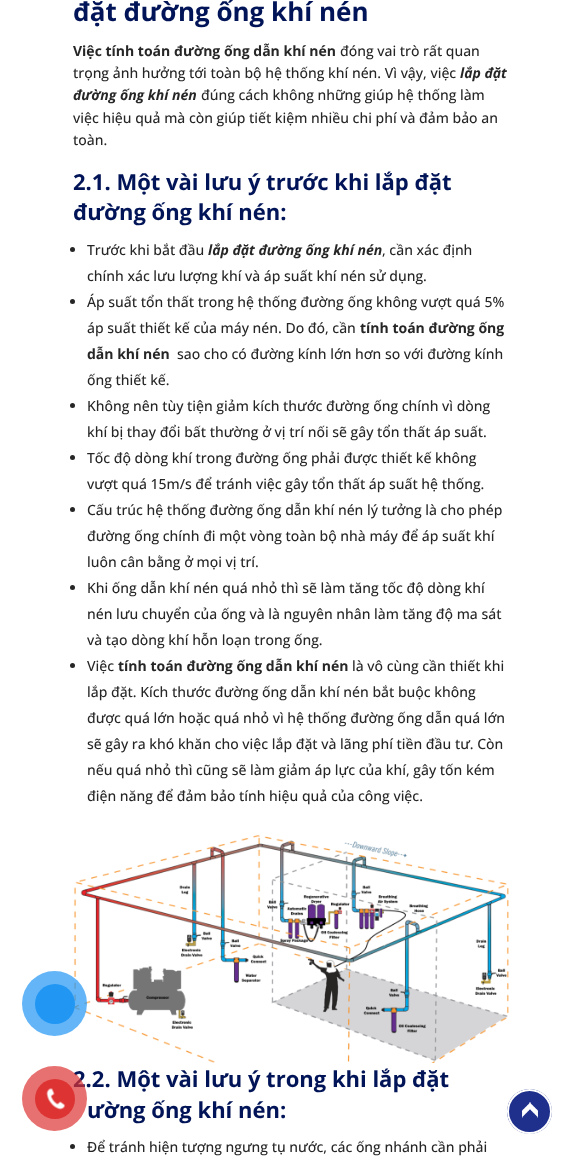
<svg xmlns="http://www.w3.org/2000/svg" width="582" height="1164">
<style>
.a{font:bold 26px Open Sans;fill:#001457}
.b{font:bold 14px Open Sans;fill:#262626}
.c{font:500 14px Open Sans;fill:#262626}
.d{font:italic bold 14px Open Sans;fill:#262626}
.e{font:bold 22px Open Sans;fill:#001457}
</style>
<rect width="100%" height="100%" fill="#fff"/>
<image href="2.png" x="73" y="834" width="436" height="229"/>
<circle fill="#2196f3b3" cx="54.5" cy="1003.5" r="32.5"/>
<circle fill="#2196f3" cx="55" cy="1004" r="20"/>
<circle fill="#262626" cx="72.5" cy="249.5" r="2.5"/>
<circle fill="#262626" cx="72.5" cy="301.5" r="2.5"/>
<circle fill="#262626" cx="72.5" cy="405.5" r="2.5"/>
<circle fill="#262626" cx="72.5" cy="457.5" r="2.5"/>
<circle fill="#262626" cx="72.5" cy="509.5" r="2.5"/>
<circle fill="#262626" cx="72.5" cy="587.5" r="2.5"/>
<circle fill="#262626" cx="72.5" cy="665.5" r="2.5"/>
<circle fill="#262626" cx="72.5" cy="1146.5" r="2.5"/>
<circle fill="#1e2f8c" cx="529.5" cy="1111.5" r="22.5"/>
<image href="3.png" x="522" y="1102" width="16" height="16"/>
<circle fill="none" stroke="#fff" stroke-width="2" cx="529.5" cy="1111.5" r="21.5"/>
<text class="a" x="73" y="21">đặt đường ống khí nén</text>
<text class="b" x="73" y="56">Việc tính toán đường ống dẫn khí nén</text>
<text class="c" x="340" y="56">đóng vai trò rất quan</text>
<text class="c" x="73" y="78">trọng ảnh hưởng tới toàn bộ hệ thống khí nén. Vì vậy, việc</text>
<text class="d" x="460" y="78">lắp đặt</text>
<text class="d" x="73" y="100">đường ống khí nén</text>
<text class="c" x="201" y="100">đúng cách không những giúp hệ thống làm</text>
<text class="c" x="73" y="123">việc hiệu quả mà còn giúp tiết kiệm nhiều chi phí và đảm bảo an</text>
<text class="c" x="73" y="145">toàn.</text>
<text class="e" x="73" y="190">2.1. Một vài lưu ý trước khi lắp đặt</text>
<text class="e" x="73" y="220">đường ống khí nén:</text>
<text class="c" x="87" y="255">Trước khi bắt đầu</text>
<text class="d" x="208" y="255">lắp đặt đường ống khí nén</text>
<text class="c" x="382" y="255">, cần xác định</text>
<text class="c" x="87" y="281">chính xác lưu lượng khí và áp suất khí nén sử dụng.</text>
<text class="c" x="87" y="307">Áp suất tổn thất trong hệ thống đường ống không vượt quá 5%</text>
<text class="c" x="87" y="333">áp suất thiết kế của máy nén. Do đó, cần</text>
<text class="b" x="360" y="333">tính toán đường ống</text>
<text class="b" x="87" y="359">dẫn khí nén</text>
<text class="c" x="177" y="359">sao cho có đường kính lớn hơn so với đường kính</text>
<text class="c" x="87" y="385">ống thiết kế.</text>
<text class="c" x="87" y="411">Không nên tùy tiện giảm kích thước đường ống chính vì dòng</text>
<text class="c" x="87" y="437">khí bị thay đổi bất thường ở vị trí nối sẽ gây tổn thất áp suất.</text>
<text class="c" x="87" y="463">Tốc độ dòng khí trong đường ống phải được thiết kế không</text>
<text class="c" x="87" y="489">vượt quá 15m/s để tránh việc gây tổn thất áp suất hệ thống.</text>
<text class="c" x="87" y="515">Cấu trúc hệ thống đường ống dẫn khí nén lý tưởng là cho phép</text>
<text class="c" x="87" y="541">đường ống chính đi một vòng toàn bộ nhà máy để áp suất khí</text>
<text class="c" x="87" y="567">luôn cân bằng ở mọi vị trí.</text>
<text class="c" x="87" y="593">Khi ống dẫn khí nén quá nhỏ thì sẽ làm tăng tốc độ dòng khí</text>
<text class="c" x="87" y="619">nén lưu chuyển của ống và là nguyên nhân làm tăng độ ma sát</text>
<text class="c" x="87" y="645">và tạo dòng khí hỗn loạn trong ống.</text>
<text class="c" x="87" y="671">Việc</text>
<text class="b" x="118" y="671">tính toán đường ống dẫn khí nén</text>
<text class="c" x="352" y="671">là vô cùng cần thiết khi</text>
<text class="c" x="87" y="697">lắp đặt. Kích thước đường ống dẫn khí nén bắt buộc không</text>
<text class="c" x="87" y="723">được quá lớn hoặc quá nhỏ vì hệ thống đường ống dẫn quá lớn</text>
<text class="c" x="87" y="749">sẽ gây ra khó khăn cho việc lắp đặt và lãng phí tiền đầu tư. Còn</text>
<text class="c" x="87" y="775">nếu quá nhỏ thì cũng sẽ làm giảm áp lực của khí, gây tốn kém</text>
<text class="c" x="87" y="801">điện năng để đảm bảo tính hiệu quả của công việc.</text>
<text class="e" x="73" y="1087">2.2. Một vài lưu ý trong khi lắp đặt</text>
<circle fill="#dd3333b3" cx="54.5" cy="1098.5" r="32.5"/>
<circle fill="#d33" cx="55" cy="1099" r="20"/>
<image href="1.png" x="46" y="1088" width="19" height="22"/>
<text class="e" x="87" y="1118">ường ống khí nén:</text>
<text class="c" x="87" y="1152">Để tránh hiện tượng ngưng tụ nước, các ống nhánh cần phải</text>
</svg>
